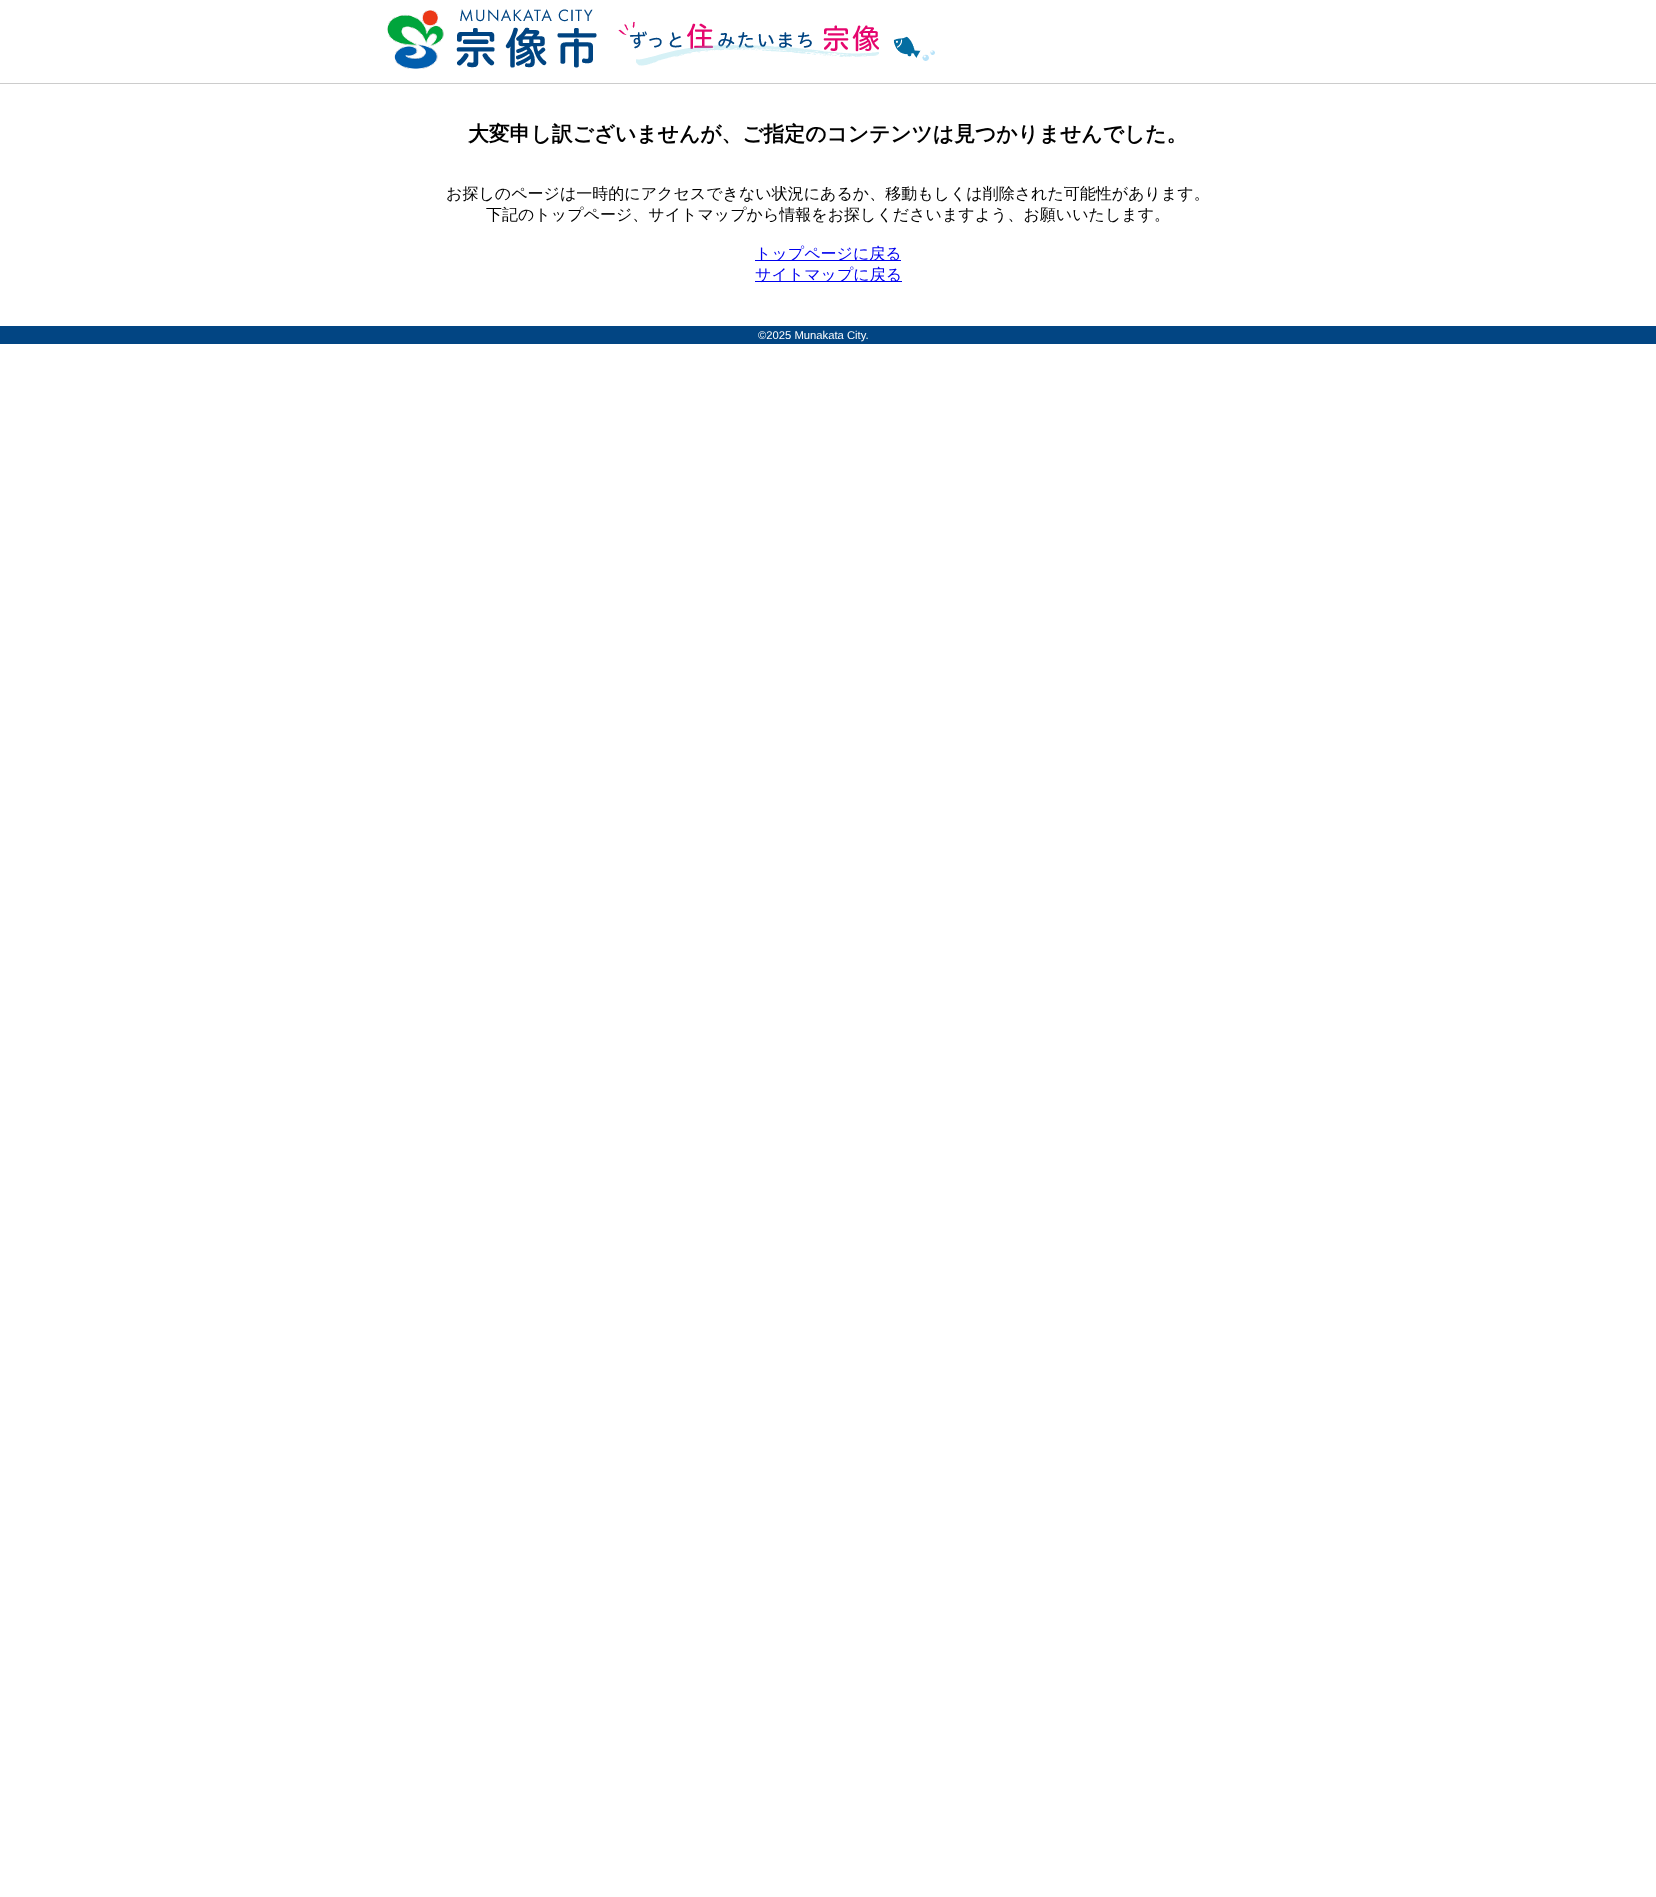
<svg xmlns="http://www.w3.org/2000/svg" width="1656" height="1897">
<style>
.a{font:bold 20.8px WenQuanYi Zen Hei;fill:#000}
.b{font:500 16px WenQuanYi Zen Hei;fill:#000}
.c{font:500 16px WenQuanYi Zen Hei;fill:#00e}
.d{font:11.25px Liberation Sans;fill:#fff}
</style>
<rect width="100%" height="100%" fill="#fff"/>
<path fill="#ccc" d="M0 83h1656v1H0z"/>
<image href="1.png" x="387" y="9" width="548" height="60"/>
<path fill="#00e" d="M755 260h146v1H755z"/>
<path fill="#00e" d="M755 281h147v1H755z"/>
<path fill="#024583" d="M0 326h1656v18H0z"/>
<text class="a" x="468" y="141">大変申し訳ございませんが、ご指定のコンテンツは見つかりませんでした。</text>
<text class="b" x="446" y="199">お探しのページは一時的にアクセスできない状況にあるか、移動もしくは削除された可能性があります。</text>
<text class="b" x="486" y="220">下記のトップページ、サイトマップから情報をお探しくださいますよう、お願いいたします。</text>
<text class="c" x="755" y="259">トップページに戻る</text>
<text class="c" x="755" y="280">サイトマップに戻る</text>
<text class="d" x="758" y="339">©2025 Munakata City.</text>
</svg>
